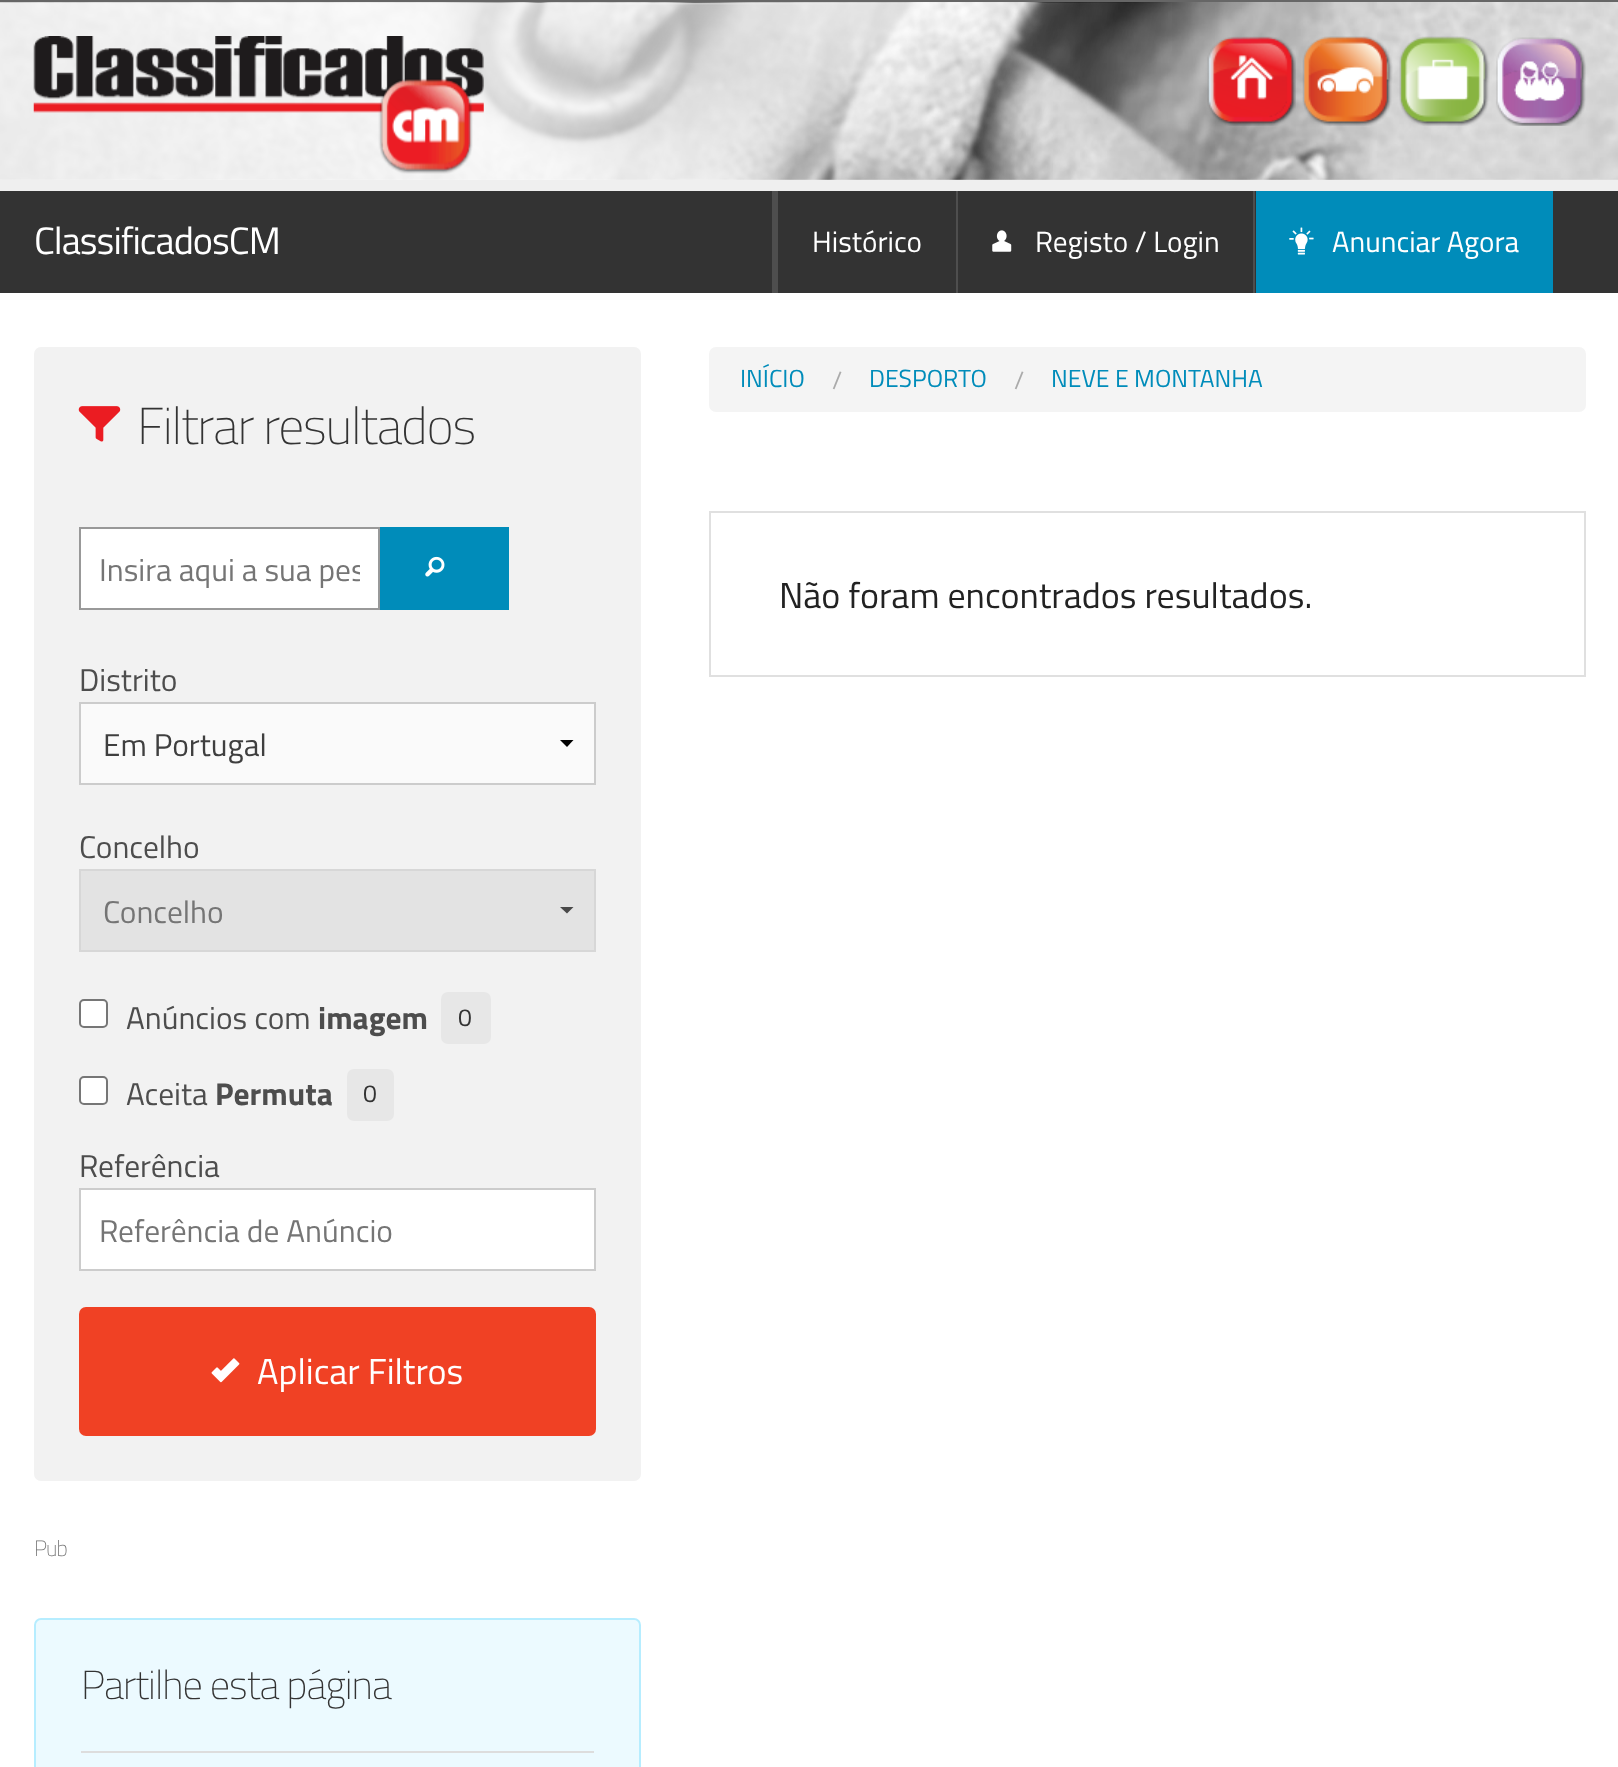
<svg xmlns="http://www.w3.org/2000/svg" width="1618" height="1767">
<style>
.a{font:38.25px Titillium Web;letter-spacing:-1px;fill:#fff}
.b{font:29.25px Titillium Web;fill:#fff}
.c{font:200 51.75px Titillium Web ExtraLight;letter-spacing:-1.25px;fill:#333}
.d{font:31.5px Titillium Web;fill:#757575}
.e{font:31.5px Titillium Web;fill:#4d4d4d}
.f{font:31.5px Titillium Web;fill:#3f3f3f}
.g{font:bold 31.5px Titillium Web;fill:#4d4d4d}
.h{font:24.75px Titillium Web;fill:#333}
.i{font:36px Titillium Web;fill:#fff}
.j{font:200 22px Titillium Web ExtraLight;letter-spacing:-1px;fill:#6f6f6f}
.k{font:200 40.5px Titillium Web ExtraLight;letter-spacing:-1px;fill:#333}
.l{font:24.75px Titillium Web;fill:#008cba}
.m{font:24.75px Titillium Web;fill:#aaa}
.n{font:36px Titillium Web;fill:#222}
</style>
<defs>
<clipPath id="clip1"><path d="M99 545h261v47H99z"/></clipPath>
</defs>
<rect width="100%" height="100%" fill="#efefef"/>
<path fill="#666" d="M0 0h1618v2H0z"/>
<image href="1.png" x="0" y="2" width="1618" height="178"/>
<image href="2.png" x="0" y="2" width="1172" height="178"/>
<image href="3.png" x="33" y="36" width="451" height="138"/>
<image href="4.png" x="1207" y="36" width="89" height="90"/>
<image href="5.png" x="1302" y="36" width="91" height="90"/>
<image href="6.png" x="1399" y="36" width="91" height="90"/>
<image href="7.png" x="1496" y="37" width="90" height="89"/>
<path fill="#333" d="M0 191h1618v102H0z"/>
<path fill="#4e4e4e" d="M772 191h6v102H772z"/>
<path fill="#4e4e4e" d="M956 191h2v102H956z"/>
<image href="8.png" x="992" y="230" width="20" height="22"/>
<path fill="#4e4e4e" d="M1253 191h2v102H1253z"/>
<path fill="#008cba" d="M1256 191h297v102H1256z"/>
<image href="9.png" x="1289" y="227" width="25" height="28"/>
<path fill="#fff" d="M0 293h1618v1474H0z"/>
<rect fill="#f2f2f2" x="34" y="347" width="607" height="1134" rx="7"/>
<image href="10.png" x="78" y="406" width="43" height="36"/>
<path fill="#fff" stroke="#999" stroke-width="2" d="M80 528h299v81H80z"/>
<path fill="#008cba" d="M380 527h129v83H380z"/>
<image href="11.png" x="425" y="556" width="20" height="21"/>
<path fill="#fafafa" d="M81 704h513v79H81z"/>
<path fill="#000" d="M573.5 740l-6.5 7l-7-7z"/>
<path fill="none" stroke="#ccc" stroke-width="2" d="M80 703h515v81H80z"/>
<path fill="#e3e3e3" d="M81 871h513v79H81z"/>
<path fill="#494949" d="M573.5 907l-6.5 6.5l-7-6.5z"/>
<path fill="none" stroke="#d7d7d7" stroke-width="2" d="M80 870h515v81H80z"/>
<rect fill="#fff" stroke="#767676" stroke-width="2" x="80" y="1000" width="27" height="27" rx="4"/>
<rect fill="#e7e7e7" x="441" y="992" width="50" height="52" rx="7"/>
<rect fill="#fff" stroke="#767676" stroke-width="2" x="80" y="1077" width="27" height="27" rx="4"/>
<rect fill="#e7e7e7" x="347" y="1069" width="47" height="52" rx="7"/>
<path fill="#fff" stroke="#ccc" stroke-width="2" d="M80 1189h515v81H80z"/>
<rect fill="#f04124" x="79" y="1307" width="517" height="129" rx="7"/>
<image href="12.png" x="211" y="1358" width="29" height="25"/>
<rect fill="#ecfaff" stroke="#b6edff" stroke-width="2" x="35" y="1619" width="605" height="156" rx="6"/>
<path fill="#ddd" d="M81 1751h513v2H81z"/>
<rect fill="#f4f4f4" x="709" y="347" width="877" height="65" rx="7"/>
<path fill="none" stroke="#e0e0e0" stroke-width="2" d="M710 512h875v164H710z"/>
<text class="a" x="34" y="254">ClassificadosCM</text>
<text class="b" x="812" y="252">Histórico</text>
<text class="b" x="1035" y="252">Registo / Login</text>
<text class="b" x="1332" y="252">Anunciar Agora</text>
<text class="c" x="137" y="444">Filtrar resultados</text>
<g clip-path="url(#clip1)">
<text class="d" x="99" y="581">Insira aqui a sua pes</text>
</g>
<text class="e" x="79" y="691">Distrito</text>
<text class="f" x="103" y="756">Em Portugal</text>
<text class="e" x="79" y="858">Concelho</text>
<text class="d" x="103" y="923">Concelho</text>
<text class="e" x="126" y="1029">Anúncios com</text>
<text class="g" x="318" y="1029">imagem</text>
<text class="h" x="458" y="1026">0</text>
<text class="e" x="126" y="1105">Aceita</text>
<text class="g" x="215" y="1105">Permuta</text>
<text class="h" x="363" y="1102">0</text>
<text class="e" x="79" y="1177">Referência</text>
<text class="d" x="99" y="1242">Referência de Anúncio</text>
<text class="i" x="257" y="1384">Aplicar Filtros</text>
<text class="j" x="34" y="1556">Pub</text>
<text class="k" x="81" y="1699">Partilhe esta página</text>
<text class="l" x="740" y="387">INÍCIO</text>
<text class="m" x="832" y="389">/</text>
<text class="l" x="869" y="387">DESPORTO</text>
<text class="m" x="1014" y="389">/</text>
<text class="l" x="1051" y="387">NEVE E MONTANHA</text>
<text class="n" x="779" y="608">Não foram encontrados resultados.</text>
</svg>
